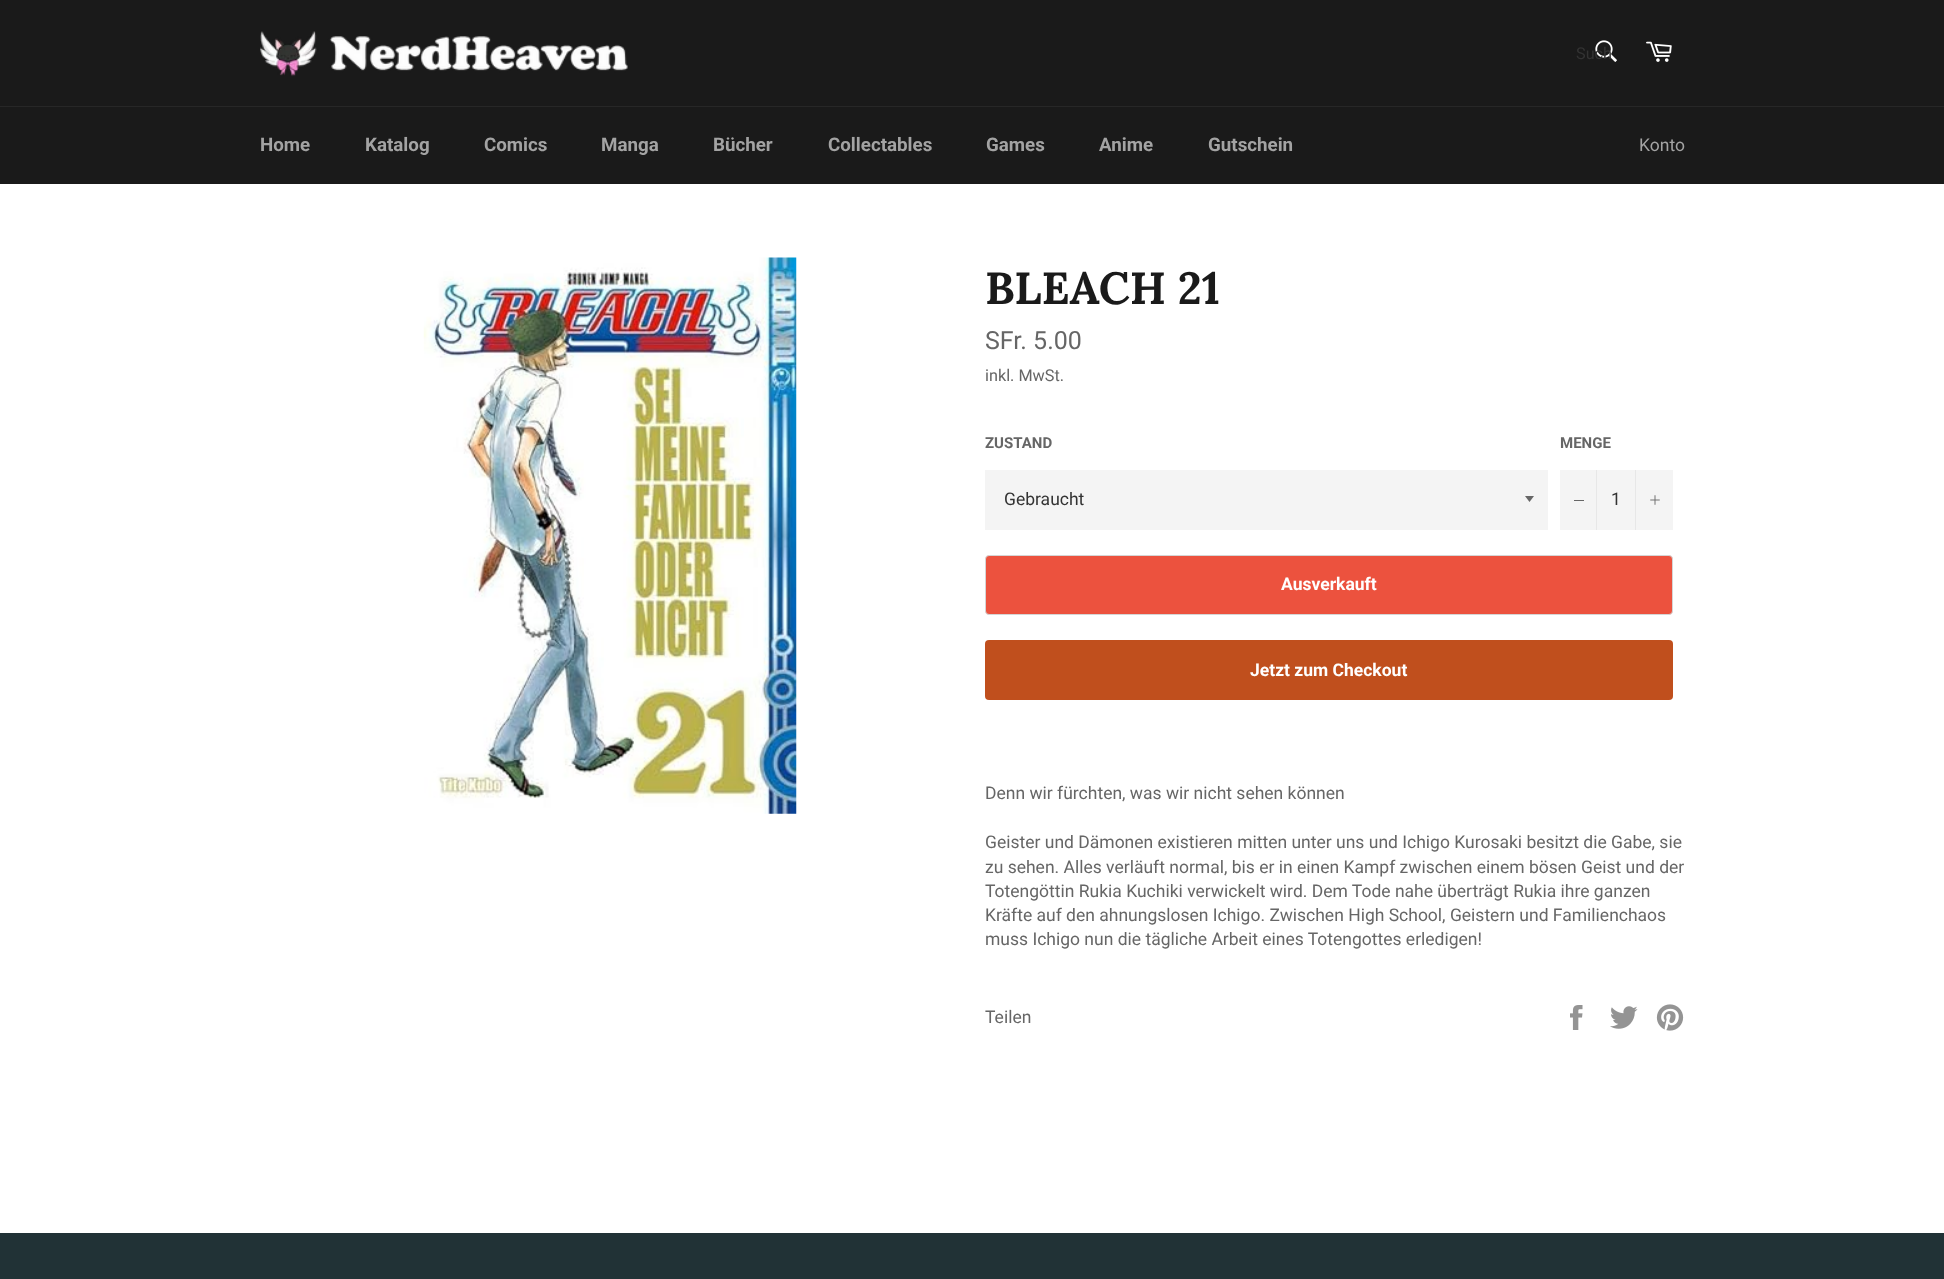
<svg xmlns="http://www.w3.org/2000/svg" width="1944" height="1279">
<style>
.a{font:16.25px Roboto;fill:#333}
.b{font:bold 18.75px Roboto;fill:#a3a3a3}
.c{font:17.5px Roboto;fill:#a3a3a3}
.d{font:bold 45px Lora;fill:#1a1a1a}
.e{font:25px Roboto;fill:#666}
.f{font:16.25px Roboto;fill:#666}
.g{font:bold 15px Roboto;fill:#666}
.h{font:17.5px Roboto;fill:#333}
.i{font:bold 17.5px Roboto;fill:#fff}
.j{font:17.5px Roboto;fill:#666}
</style>
<rect width="100%" height="100%" fill="#fff"/>
<path fill="#1a1a1a" d="M0 0h1944v106H0z"/>
<image href="1.png" x="260" y="31" width="368" height="46"/>
<image href="2.png" x="1595" y="40" width="22" height="22"/>
<image href="3.png" x="1646" y="41" width="26" height="21"/>
<path fill="#1a1a1a" d="M0 107h1944v77H0z"/>
<path fill="#272727" d="M0 106h1944v1H0z"/>
<image href="4.png" x="423" y="257" width="374" height="557"/>
<path fill="#f4f4f4" d="M985 470h563v60H985z"/>
<path fill="#666" d="M1525 496l4.5 6l4.5-6z"/>
<path fill="#f4f4f4" d="M1560 470h113v60H1560z"/>
<path fill="#e7e7e7" d="M1596 470h1v60H1596z"/>
<path fill="#666" d="M1574 500h10v1H1574z"/>
<path fill="#e7e7e7" d="M1635 470h1v60H1635z"/>
<image href="5.png" x="1650" y="495" width="10" height="10"/>
<rect fill="#ec523e" stroke="#d5d5d5" x="985.5" y="555.5" width="687" height="59" rx="3.5"/>
<rect fill="#c04f1d" x="985" y="640" width="688" height="60" rx="4"/>
<image href="6.png" x="1570" y="1005" width="13" height="25"/>
<image href="7.png" x="1610" y="1006" width="28" height="23"/>
<image href="8.png" x="1656" y="1004" width="28" height="27"/>
<path fill="#213236" d="M0 1233h1944v46H0z"/>
<text class="a" x="1576" y="59">Such</text>
<text class="b" x="260" y="151">Home</text>
<text class="b" x="365" y="151">Katalog</text>
<text class="b" x="484" y="151">Comics</text>
<text class="b" x="601" y="151">Manga</text>
<text class="b" x="713" y="151">Bücher</text>
<text class="b" x="828" y="151">Collectables</text>
<text class="b" x="986" y="151">Games</text>
<text class="b" x="1099" y="151">Anime</text>
<text class="b" x="1208" y="151">Gutschein</text>
<text class="c" x="1639" y="151">Konto</text>
<text class="d" x="985" y="304">BLEACH 21</text>
<text class="e" x="985" y="349">SFr. 5.00</text>
<text class="f" x="985" y="381">inkl. MwSt.</text>
<text class="g" x="985" y="448">ZUSTAND</text>
<text class="h" x="1004" y="505">Gebraucht</text>
<text class="g" x="1560" y="448">MENGE</text>
<text class="h" x="1611" y="505">1</text>
<text class="i" x="1281" y="590">Ausverkauft</text>
<text class="i" x="1250" y="676">Jetzt zum Checkout</text>
<text class="j" x="985" y="799">Denn wir fürchten, was wir nicht sehen können</text>
<text class="j" x="985" y="848">Geister und Dämonen existieren mitten unter uns und Ichigo Kurosaki besitzt die Gabe, sie</text>
<text class="j" x="985" y="873">zu sehen. Alles verläuft normal, bis er in einen Kampf zwischen einem bösen Geist und der</text>
<text class="j" x="985" y="897">Totengöttin Rukia Kuchiki verwickelt wird. Dem Tode nahe überträgt Rukia ihre ganzen</text>
<text class="j" x="985" y="921">Kräfte auf den ahnungslosen Ichigo. Zwischen High School, Geistern und Familienchaos</text>
<text class="j" x="985" y="945">muss Ichigo nun die tägliche Arbeit eines Totengottes erledigen!</text>
<text class="j" x="985" y="1023">Teilen</text>
</svg>
